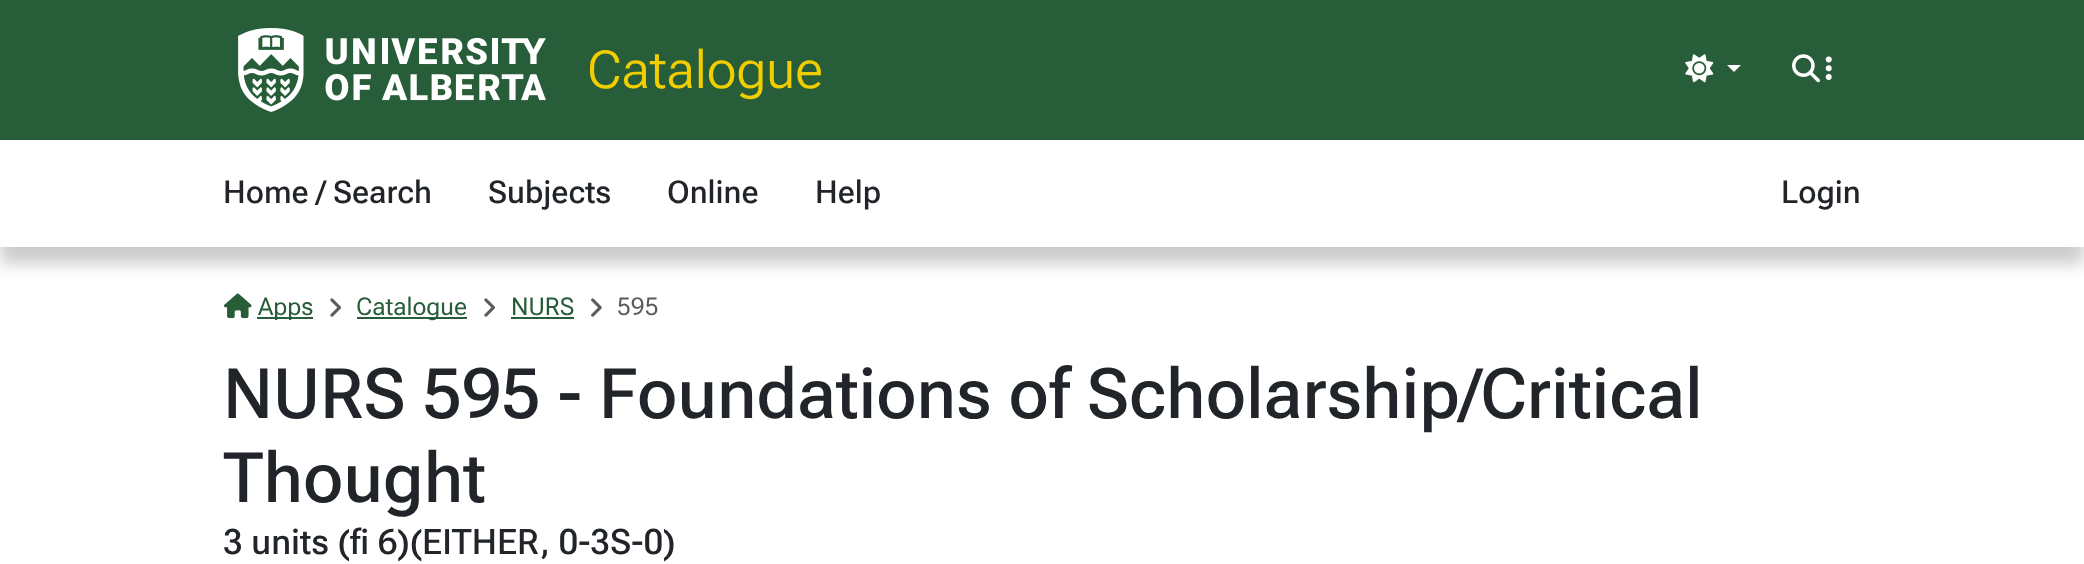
<svg xmlns="http://www.w3.org/2000/svg" width="2084" height="564">
<style>
.a{font:300 52.5px Roboto Flex;fill:#f2cd00}
.b{font:500 31.5px Roboto Flex;fill:#212529}
.c{font:24.5px Roboto Flex;fill:#275d38}
.d{font:24.5px Roboto Flex;fill:#595c5f}
.e{font:500 69.75px Roboto Flex;fill:#212529}
.f{font:500 35px Roboto Flex;fill:#212529}
</style>
<rect width="100%" height="100%" fill="#fff"/>
<path fill="#275d38" d="M0 0h2084v140H0z"/>
<image href="1.png" x="238" y="28" width="308" height="84"/>
<image href="2.png" x="1685" y="54" width="29" height="29"/>
<path fill="#fff" d="M1727 65h14l-7 7z"/>
<image href="3.png" x="1792" y="54" width="28" height="29"/>
<image href="4.png" x="1825" y="56" width="7" height="25"/>
<path fill="#00000033" filter="blur(8px)" d="M0 158h2084v106H0z"/>
<path fill="#fff" d="M0 145h2084v102H0z"/>
<image href="5.png" x="224" y="293" width="28" height="26"/>
<path fill="#275d38" d="M257 317h56v2H257z"/>
<image href="6.png" x="330" y="298" width="11" height="19"/>
<path fill="#275d38" d="M357 317h110v2H357z"/>
<image href="6.png" x="484" y="298" width="11" height="19"/>
<path fill="#275d38" d="M511 317h63v2H511z"/>
<image href="7.png" x="591" y="298" width="11" height="19"/>
<text class="a" x="587" y="88">Catalogue</text>
<text class="b" x="223" y="203">Home / Search</text>
<text class="b" x="488" y="203">Subjects</text>
<text class="b" x="667" y="203">Online</text>
<text class="b" x="815" y="203">Help</text>
<text class="b" x="1781" y="203">Login</text>
<text class="c" x="258" y="315">Apps</text>
<text class="c" x="356" y="315">Catalogue</text>
<text class="c" x="511" y="315">NURS</text>
<text class="d" x="617" y="315">595</text>
<text class="e" x="223" y="418">NURS 595 - Foundations of Scholarship/Critical</text>
<text class="e" x="223" y="502">Thought</text>
<text class="f" x="223" y="554">3 units (fi 6)(EITHER, 0-3S-0)</text>
</svg>
